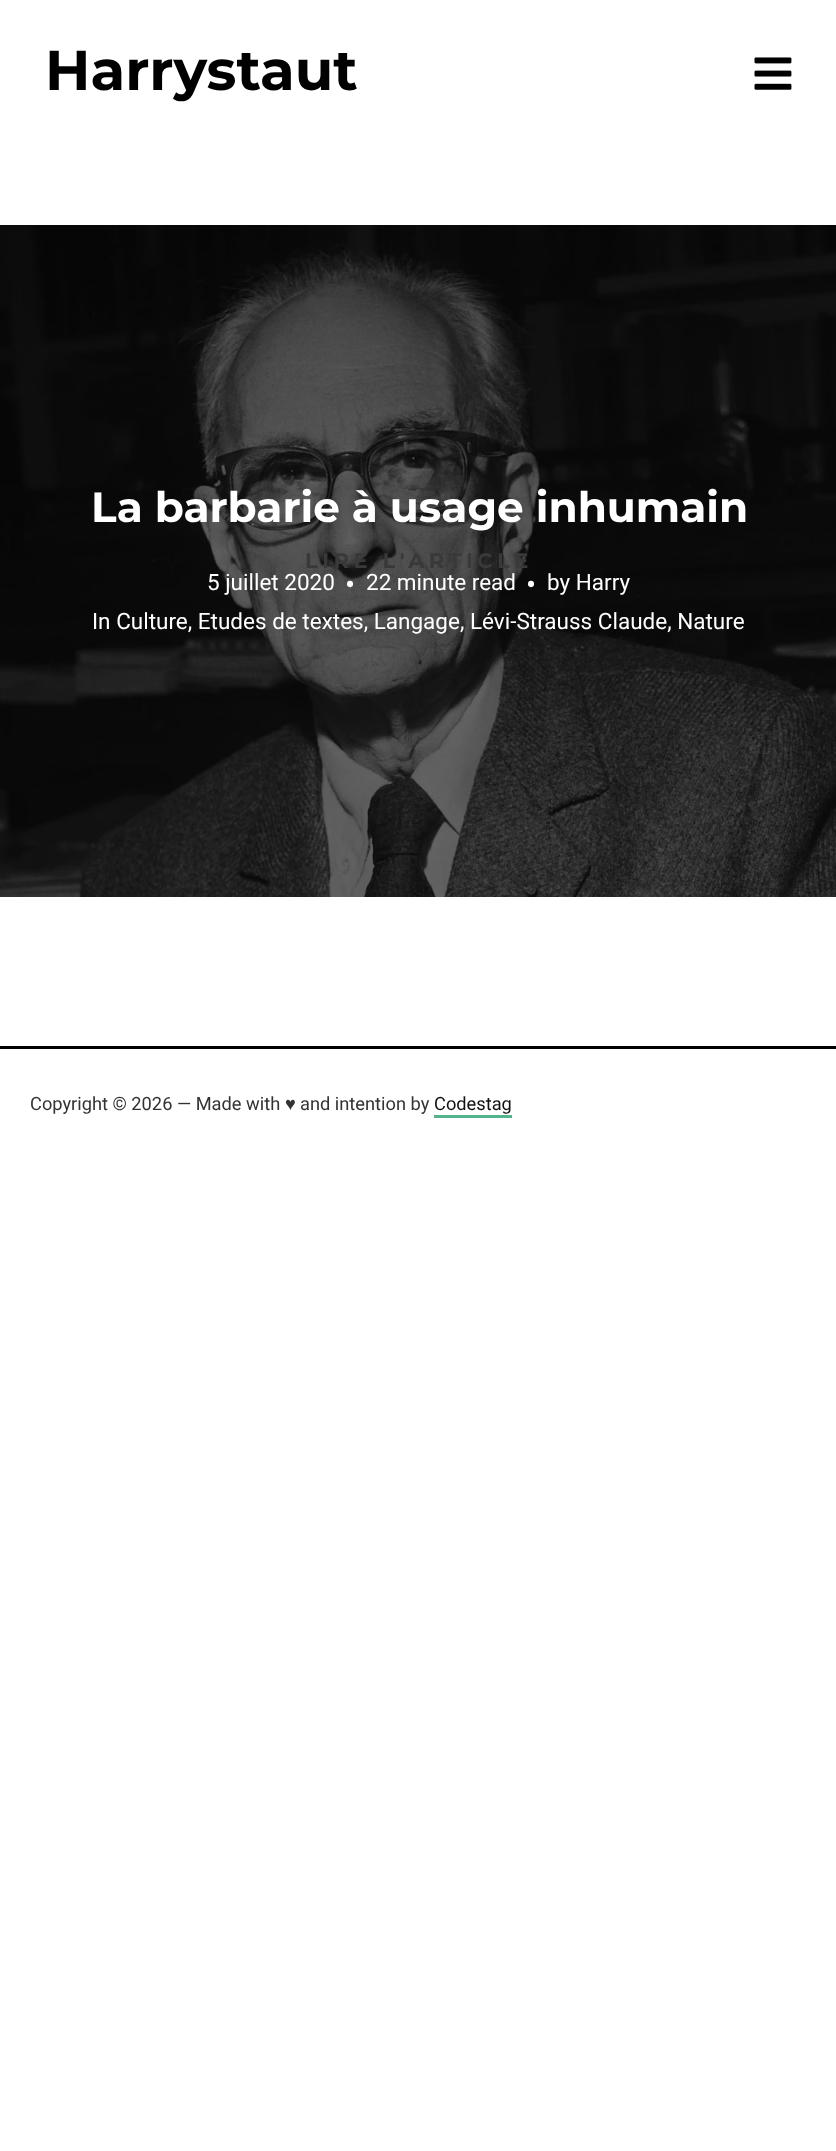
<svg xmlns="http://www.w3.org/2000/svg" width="836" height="2151">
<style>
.a{font:bold 56.25px Montserrat;fill:#000}
.b{font:bold 42.25px Montserrat;fill:#fff}
.c{font:bold 21px Montserrat;letter-spacing:4.5px;fill:#393939}
.d{font:22.5px Roboto;fill:#fff}
.e{font:30px Roboto;fill:#fff}
.f{font:18.25px Roboto;fill:#333}
.g{font:18.25px Liberation Serif;fill:#333}
.h{font:18.25px Roboto;fill:#111}
</style>
<rect width="100%" height="100%" fill="#fff"/>
<image href="1.png" x="754" y="57" width="38" height="33"/>
<path fill="#000" d="M0 225h836v672H0z"/>
<image href="2.png" x="0" y="225" width="836" height="672"/>
<path fill="#000" d="M0 1046h836v3H0z"/>
<path fill="#53b38c" d="M434 1115h78v3H434z"/>
<text class="a" x="45" y="90">Harrystaut</text>
<text class="b" x="91" y="522">La barbarie à usage inhumain</text>
<text class="c" x="305" y="568">LIRE L'ARTICLE</text>
<text class="d" x="207" y="590">5 juillet 2020</text>
<text class="e" x="345" y="595">•</text>
<text class="d" x="366" y="590">22 minute read</text>
<text class="e" x="526" y="595">•</text>
<text class="d" x="547" y="590">by Harry</text>
<text class="d" x="92" y="629">In Culture, Etudes de textes, Langage, Lévi-Strauss Claude, Nature</text>
<text class="f" x="30" y="1110">Copyright © 2026 — Made with</text>
<text class="g" x="285" y="1110">♥</text>
<text class="f" x="300" y="1110">and intention by</text>
<text class="h" x="434" y="1110">Codestag</text>
</svg>
